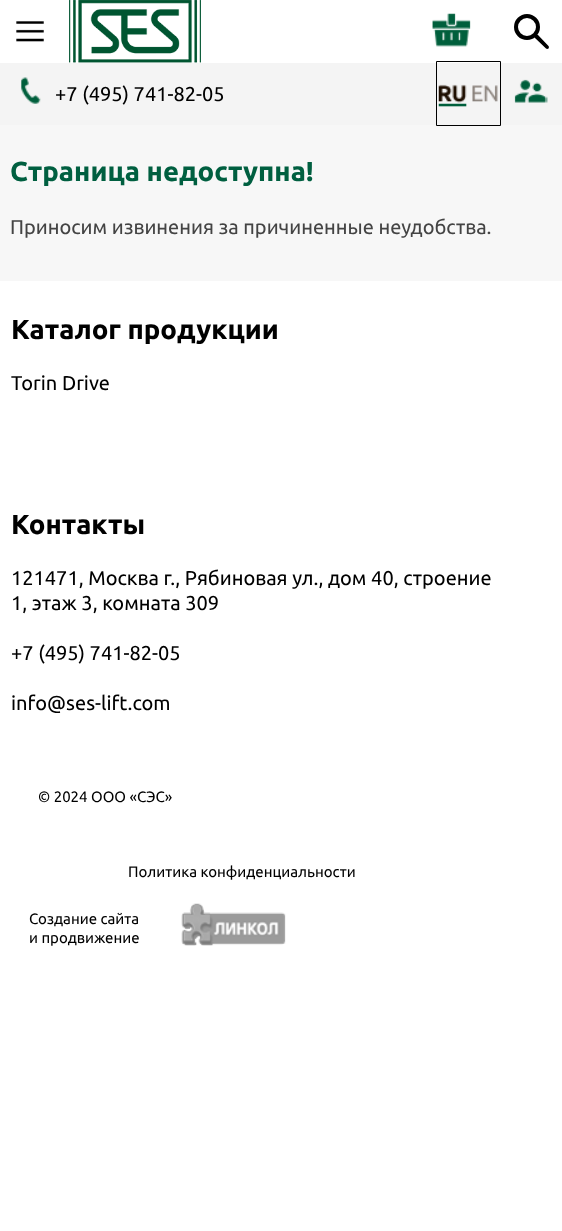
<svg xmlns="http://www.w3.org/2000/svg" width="562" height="1231">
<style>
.a{font:20px Ubuntu;fill:#000}
.b{font:bold 27.5px Ubuntu;fill:#005f40}
.c{font:20px Ubuntu;fill:#444}
.d{font:bold 27.5px Ubuntu;fill:#000}
.e{font:15px Ubuntu;fill:#000}
</style>
<rect width="100%" height="100%" fill="#fff"/>
<path fill="#f7f7f7" d="M0 125h562v156H0z"/>
<image href="1.png" x="16" y="21" width="28" height="21"/>
<image href="2.png" x="69" y="0" width="132" height="63"/>
<image href="3.png" x="432" y="13" width="39" height="34"/>
<circle fill="none" stroke="#000" stroke-width="4" cx="527" cy="27" r="11"/>
<path fill="#000" d="M538 35l10.5 11c.5 .5 .5 2 0 2.5c-.5 .5-2 .5-2.5 0l-11-10.5c-.5-1-.5-2 0-3c1-.5 2-.5 3 0z"/>
<path fill="#f4f4f4" d="M0 63h562v62H0z"/>
<image href="4.png" x="21" y="77" width="20" height="27"/>
<path fill="none" stroke="#000" d="M436.5 61.5h64v64H436.5z"/>
<image href="5.png" x="438" y="84" width="29" height="23"/>
<image href="6.png" x="472" y="85" width="26" height="17"/>
<image href="7.png" x="514" y="79" width="34" height="24"/>
<image href="8.png" x="181" y="903" width="105" height="43"/>
<text class="a" x="55" y="101">+7 (495) 741-82-05</text>
<text class="b" x="10" y="181">Cтраница недоступна!</text>
<text class="c" x="10" y="234">Приносим извинения за причиненные неудобства.</text>
<text class="d" x="11" y="339">Каталог продукции</text>
<text class="a" x="11" y="390">Torin Drive</text>
<text class="d" x="11" y="534">Контакты</text>
<text class="a" x="11" y="585">121471, Москва г., Рябиновая ул., дом 40, строение</text>
<text class="a" x="11" y="610">1, этаж 3, комната 309</text>
<text class="a" x="11" y="660">+7 (495) 741-82-05</text>
<text class="a" x="11" y="710">info@ses-lift.com</text>
<text class="e" x="38" y="802">© 2024 ООО «СЭС»</text>
<text class="e" x="128" y="877">Политика конфиденциальности</text>
<text class="e" x="29" y="924">Создание сайта</text>
<text class="e" x="29" y="943">и продвижение</text>
</svg>
